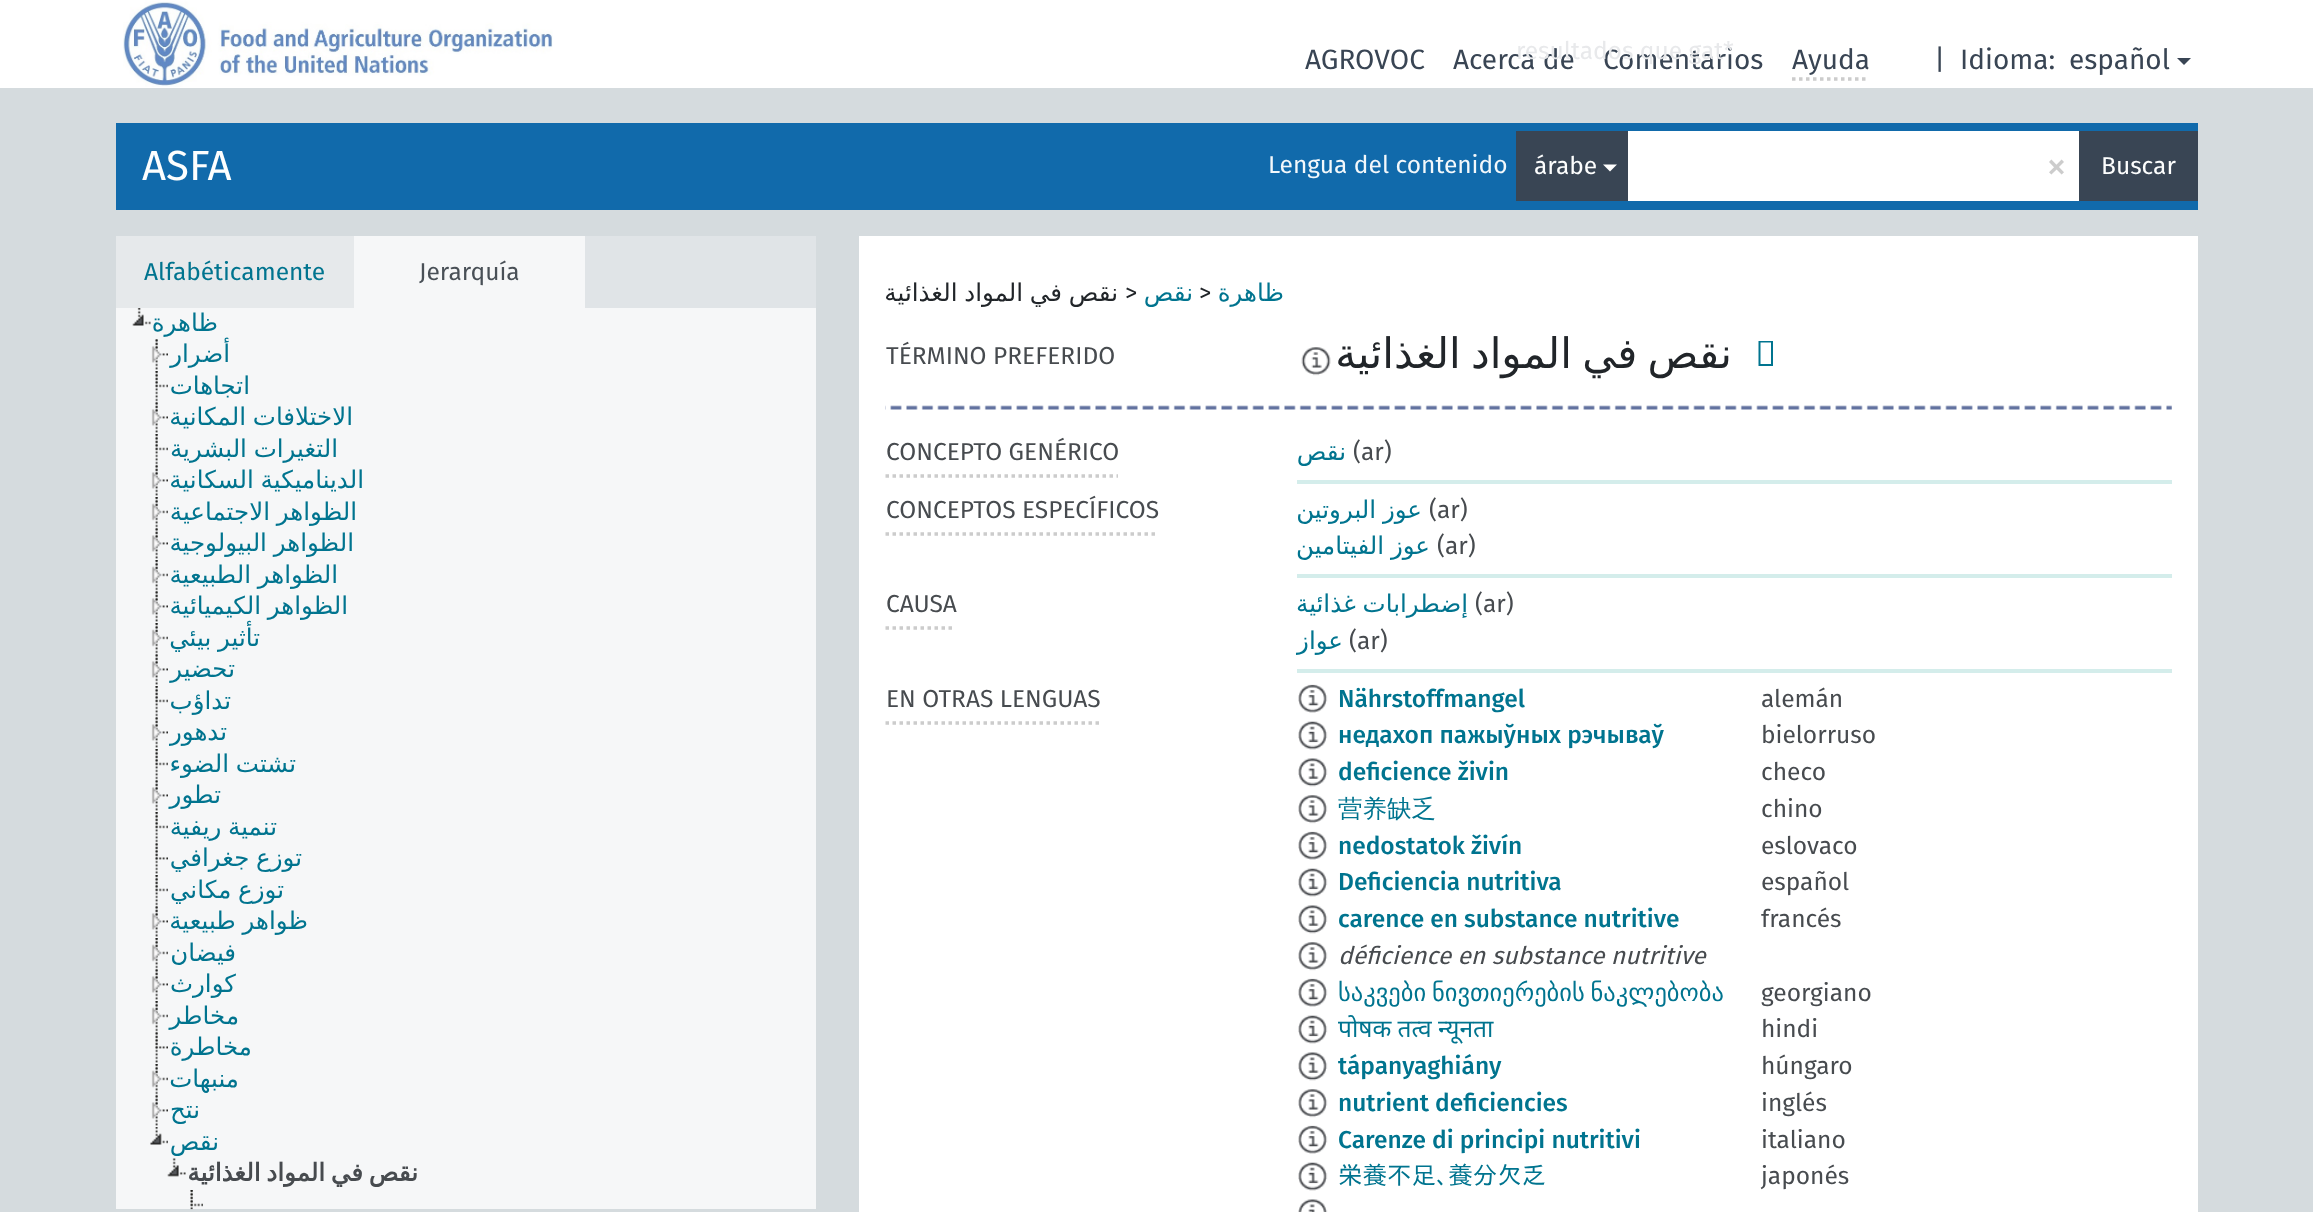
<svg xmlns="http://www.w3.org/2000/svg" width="2313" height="1212">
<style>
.a{font:28px Fira Sans;fill:#394554}
.b{font:24.5px Fira Sans;fill:#e8e9eb}
.c{font:42px Fira Sans;fill:#fdfefe}
.d{font:24.5px Fira Sans;fill:#f3f8fb}
.e{font:24.5px Fira Sans;fill:#fdfefe}
.f{font:42px Fira Sans;fill:#ccc}
.g{font:24.5px Fira Sans;fill:#00748f}
.h{font:24.5px Fira Sans;fill:#495057}
.i{font:24.5px DejaVu Sans;direction:rtl;fill:#00748f}
.j{font:bold 24.5px DejaVu Sans;direction:rtl;fill:#474b4f}
.k{font:24.5px DejaVu Sans;direction:rtl;fill:#212529}
.l{font:24.5px Fira Sans;fill:#212529}
.m{font:24.5px Fira Sans;fill:#474b4f}
.n{font:42px DejaVu Sans;direction:rtl;fill:#212529}
.o{font:500 24.5px Fira Sans;fill:#00748f}
.p{font:500 24.5px WenQuanYi Zen Hei;fill:#00748f}
.q{font:italic 24.5px Fira Sans;fill:#474b4f}
.r{font:24.5px DejaVu Sans;fill:#00748f}
.s{font:24.5px Noto Sans;fill:#00748f}
.t{font:24.5px IPAGothic;fill:#00748f}
</style>
<rect width="100%" height="100%" fill="#d5dbde"/>
<path fill="#fff" d="M0 0h2313v88H0z"/>
<image href="1.png" x="123" y="0" width="430" height="87"/>
<path fill="none" stroke="#ccc" stroke-width="3.5" stroke-dasharray="3.5 3.5" d="M1792 79h77"/>
<path fill="#394554" d="M2177 58h14l-7 7z"/>
<path fill="#116aab" d="M116 123h2082v87H116z"/>
<path fill="#394554" d="M1516 131h112v70H1516z"/>
<path fill="#fff" d="M1603 164.5h14l-7 7z"/>
<path fill="#fff" d="M1628 131h451v70H1628z"/>
<path fill="#394554" d="M2079 131h119v70H2079z"/>
<path fill="#e0e4e7" d="M585 236h231v72H585z"/>
<path fill="#e6e9eb" d="M116 236h238v72H116z"/>
<path fill="#f6f7f8" d="M354 236h231v72H354z"/>
<path fill="#f6f7f8" d="M116 308h700v901H116z"/>
<image href="2.png" x="132" y="308" width="19" height="18"/>
<image href="3.png" x="155" y="339" width="3" height="31"/>
<image href="4.png" x="151" y="339" width="17" height="24"/>
<image href="5.png" x="155" y="371" width="3" height="31"/>
<image href="6.png" x="155" y="371" width="13" height="17"/>
<image href="3.png" x="155" y="402" width="3" height="31"/>
<image href="4.png" x="151" y="402" width="17" height="24"/>
<image href="5.png" x="155" y="434" width="3" height="31"/>
<image href="6.png" x="155" y="434" width="13" height="17"/>
<image href="3.png" x="155" y="465" width="3" height="31"/>
<image href="4.png" x="151" y="465" width="17" height="24"/>
<image href="5.png" x="155" y="497" width="3" height="31"/>
<image href="7.png" x="151" y="497" width="17" height="24"/>
<image href="3.png" x="155" y="528" width="3" height="31"/>
<image href="4.png" x="151" y="528" width="17" height="24"/>
<image href="5.png" x="155" y="560" width="3" height="31"/>
<image href="7.png" x="151" y="560" width="17" height="24"/>
<image href="3.png" x="155" y="591" width="3" height="31"/>
<image href="4.png" x="151" y="591" width="17" height="24"/>
<image href="5.png" x="155" y="623" width="3" height="31"/>
<image href="7.png" x="151" y="623" width="17" height="24"/>
<image href="3.png" x="155" y="654" width="3" height="31"/>
<image href="4.png" x="151" y="654" width="17" height="24"/>
<image href="5.png" x="155" y="686" width="3" height="31"/>
<image href="6.png" x="155" y="686" width="13" height="17"/>
<image href="3.png" x="155" y="717" width="3" height="31"/>
<image href="4.png" x="151" y="717" width="17" height="24"/>
<image href="5.png" x="155" y="749" width="3" height="31"/>
<image href="6.png" x="155" y="749" width="13" height="17"/>
<image href="3.png" x="155" y="780" width="3" height="31"/>
<image href="4.png" x="151" y="780" width="17" height="24"/>
<image href="5.png" x="155" y="812" width="3" height="31"/>
<image href="6.png" x="155" y="812" width="13" height="17"/>
<image href="3.png" x="155" y="843" width="3" height="31"/>
<image href="8.png" x="155" y="843" width="13" height="17"/>
<image href="5.png" x="155" y="875" width="3" height="31"/>
<image href="6.png" x="155" y="875" width="13" height="17"/>
<image href="3.png" x="155" y="906" width="3" height="31"/>
<image href="4.png" x="151" y="906" width="17" height="24"/>
<image href="5.png" x="155" y="938" width="3" height="31"/>
<image href="7.png" x="151" y="938" width="17" height="24"/>
<image href="3.png" x="155" y="969" width="3" height="31"/>
<image href="4.png" x="151" y="969" width="17" height="24"/>
<image href="5.png" x="155" y="1001" width="3" height="31"/>
<image href="7.png" x="151" y="1001" width="17" height="24"/>
<image href="3.png" x="155" y="1032" width="3" height="31"/>
<image href="8.png" x="155" y="1032" width="13" height="17"/>
<image href="5.png" x="155" y="1064" width="3" height="31"/>
<image href="7.png" x="151" y="1064" width="17" height="24"/>
<image href="3.png" x="155" y="1095" width="3" height="31"/>
<image href="4.png" x="151" y="1095" width="17" height="24"/>
<image href="9.png" x="150" y="1127" width="18" height="18"/>
<image href="10.png" x="167" y="1158" width="19" height="19"/>
<image href="11.png" x="190" y="1190" width="3" height="20"/>
<image href="12.png" x="190" y="1190" width="13" height="17"/>
<path fill="#fff" d="M859 236h1339v976H859z"/>
<image href="13.png" x="1301" y="347" width="30" height="29"/>
<path fill="#00748f" d="M1758.5 366v-25h14.5v25zm2-2h10.5v-21.5h-10.5z"/>
<image href="14.png" x="885" y="405" width="1287" height="5"/>
<path fill="none" stroke="#ccc" stroke-width="3.5" stroke-dasharray="3.5 3.5" d="M885.5 476h232.5"/>
<path fill="#d4edeb" d="M1297 480h875v4H1297z"/>
<path fill="none" stroke="#ccc" stroke-width="3.5" stroke-dasharray="3.5 3.5" d="M885.5 534h273"/>
<path fill="#d4edeb" d="M1297 574h875v4H1297z"/>
<path fill="none" stroke="#ccc" stroke-width="3.5" stroke-dasharray="3.5 3.5" d="M885.5 628h70"/>
<path fill="#d4edeb" d="M1297 669h875v4H1297z"/>
<path fill="none" stroke="#ccc" stroke-width="3.5" stroke-dasharray="3.5 3.5" d="M885.5 723h215.5"/>
<image href="15.png" x="1298" y="684" width="30" height="29"/>
<image href="16.png" x="1298" y="721" width="30" height="29"/>
<image href="17.png" x="1298" y="758" width="30" height="29"/>
<image href="18.png" x="1298" y="795" width="30" height="29"/>
<image href="15.png" x="1298" y="831" width="30" height="29"/>
<image href="16.png" x="1298" y="868" width="30" height="29"/>
<image href="17.png" x="1298" y="905" width="30" height="29"/>
<image href="18.png" x="1298" y="942" width="30" height="29"/>
<image href="15.png" x="1298" y="978" width="30" height="29"/>
<image href="16.png" x="1298" y="1015" width="30" height="29"/>
<image href="17.png" x="1298" y="1052" width="30" height="29"/>
<image href="18.png" x="1298" y="1089" width="30" height="29"/>
<image href="15.png" x="1298" y="1125" width="30" height="29"/>
<image href="16.png" x="1298" y="1162" width="30" height="29"/>
<image href="19.png" x="1298" y="1199" width="30" height="13"/>
<text class="a" x="1792" y="69">Ayuda</text>
<text class="a" x="1305" y="69">AGROVOC</text>
<text class="a" x="1453" y="69">Acerca de</text>
<text class="a" x="1603" y="69">Comentarios</text>
<text class="b" x="1516" y="59">resultados que gat*</text>
<text class="a" x="1934" y="69">|</text>
<text class="a" x="1960" y="69">Idioma:</text>
<text class="a" x="2069" y="69">español</text>
<text class="c" x="142" y="180">ASFA</text>
<text class="d" x="1268" y="173">Lengua del contenido</text>
<text class="e" x="1534" y="174">árabe</text>
<text class="f" x="2046" y="180">×</text>
<text class="e" x="2101" y="174">Buscar</text>
<text class="g" x="144" y="280">Alfabéticamente</text>
<text class="h" x="419" y="280">Jerarquía</text>
<text class="i" x="218" y="331">ظاهرة</text>
<text class="i" x="230" y="362">أضرار</text>
<text class="i" x="250" y="394">اتجاهات</text>
<text class="i" x="353" y="425" word-spacing="-1">الاختلافات المكانية</text>
<text class="i" x="338" y="457" word-spacing="-1">التغيرات البشرية</text>
<text class="i" x="364" y="488" word-spacing="-1">الديناميكية السكانية</text>
<text class="i" x="357" y="520" word-spacing="-1">الظواهر الاجتماعية</text>
<text class="i" x="354" y="551" word-spacing="-1">الظواهر البيولوجية</text>
<text class="i" x="338" y="583" word-spacing="-1">الظواهر الطبيعية</text>
<text class="i" x="348" y="614" word-spacing="-1">الظواهر الكيميائية</text>
<text class="i" x="260" y="646" word-spacing="-1">تأثير بيئي</text>
<text class="i" x="235" y="677">تحضير</text>
<text class="i" x="231" y="709">تداؤب</text>
<text class="i" x="227" y="740">تدهور</text>
<text class="i" x="296" y="772" word-spacing="-1">تشتت الضوء</text>
<text class="i" x="221" y="803">تطور</text>
<text class="i" x="277" y="835" word-spacing="-1">تنمية ريفية</text>
<text class="i" x="302" y="866" word-spacing="-1">توزع جغرافي</text>
<text class="i" x="284" y="898" word-spacing="-1">توزع مكاني</text>
<text class="i" x="308" y="929" word-spacing="-1">ظواهر طبيعية</text>
<text class="i" x="236" y="961">فيضان</text>
<text class="i" x="236" y="992">كوارث</text>
<text class="i" x="239" y="1024">مخاطر</text>
<text class="i" x="252" y="1055">مخاطرة</text>
<text class="i" x="239" y="1087">منبهات</text>
<text class="i" x="200" y="1118">نتح</text>
<text class="i" x="219" y="1150">نقص</text>
<text class="j" x="418" y="1181" word-spacing="-2">نقص في المواد الغذائية</text>
<text class="k" x="1118" y="301" word-spacing="-1">نقص في المواد الغذائية</text>
<text class="l" x="1125" y="301">&gt;</text>
<text class="i" x="1193" y="301">نقص</text>
<text class="l" x="1199" y="301">&gt;</text>
<text class="i" x="1284" y="301">ظاهرة</text>
<text class="m" x="886" y="364">TÉRMINO PREFERIDO</text>
<text class="n" x="1732" y="368" word-spacing="-3">نقص في المواد الغذائية</text>
<text class="m" x="886" y="460">CONCEPTO GENÉRICO</text>
<text class="i" x="1346" y="460">نقص</text>
<text class="m" x="1353" y="460">(ar)</text>
<text class="m" x="886" y="518">CONCEPTOS ESPECÍFICOS</text>
<text class="i" x="1422" y="518" word-spacing="-1">عوز البروتين</text>
<text class="m" x="1429" y="518">(ar)</text>
<text class="i" x="1430" y="554" word-spacing="-1">عوز الفيتامين</text>
<text class="m" x="1437" y="554">(ar)</text>
<text class="m" x="886" y="612">CAUSA</text>
<text class="i" x="1468" y="612" word-spacing="-1">إضطرابات غذائية</text>
<text class="m" x="1475" y="612">(ar)</text>
<text class="i" x="1343" y="649">عواز</text>
<text class="m" x="1349" y="649">(ar)</text>
<text class="m" x="886" y="707">EN OTRAS LENGUAS</text>
<text class="o" x="1338" y="707">Nährstoffmangel</text>
<text class="m" x="1761" y="707">alemán</text>
<text class="o" x="1338" y="743">недахоп пажыўных рэчываў</text>
<text class="m" x="1761" y="743">bielorruso</text>
<text class="o" x="1338" y="780">deficience živin</text>
<text class="m" x="1761" y="780">checo</text>
<text class="p" x="1338" y="817">营养缺乏</text>
<text class="m" x="1761" y="817">chino</text>
<text class="o" x="1338" y="854">nedostatok živín</text>
<text class="m" x="1761" y="854">eslovaco</text>
<text class="o" x="1338" y="890">Deficiencia nutritiva</text>
<text class="m" x="1761" y="890">español</text>
<text class="o" x="1338" y="927">carence en substance nutritive</text>
<text class="m" x="1761" y="927">francés</text>
<text class="q" x="1338" y="964">déficience en substance nutritive</text>
<text class="r" x="1338" y="1001" word-spacing="-2">საკვები ნივთიერების ნაკლებობა</text>
<text class="m" x="1761" y="1001">georgiano</text>
<text class="s" x="1338" y="1037">पोषक तत्व न्यूनता</text>
<text class="m" x="1761" y="1037">hindi</text>
<text class="o" x="1338" y="1074">tápanyaghiány</text>
<text class="m" x="1761" y="1074">húngaro</text>
<text class="o" x="1338" y="1111">nutrient deficiencies</text>
<text class="m" x="1761" y="1111">inglés</text>
<text class="o" x="1338" y="1148">Carenze di principi nutritivi</text>
<text class="m" x="1761" y="1148">italiano</text>
<text class="t" x="1338" y="1184">栄養不足､養分欠乏</text>
<text class="m" x="1761" y="1184">japonés</text>
</svg>
